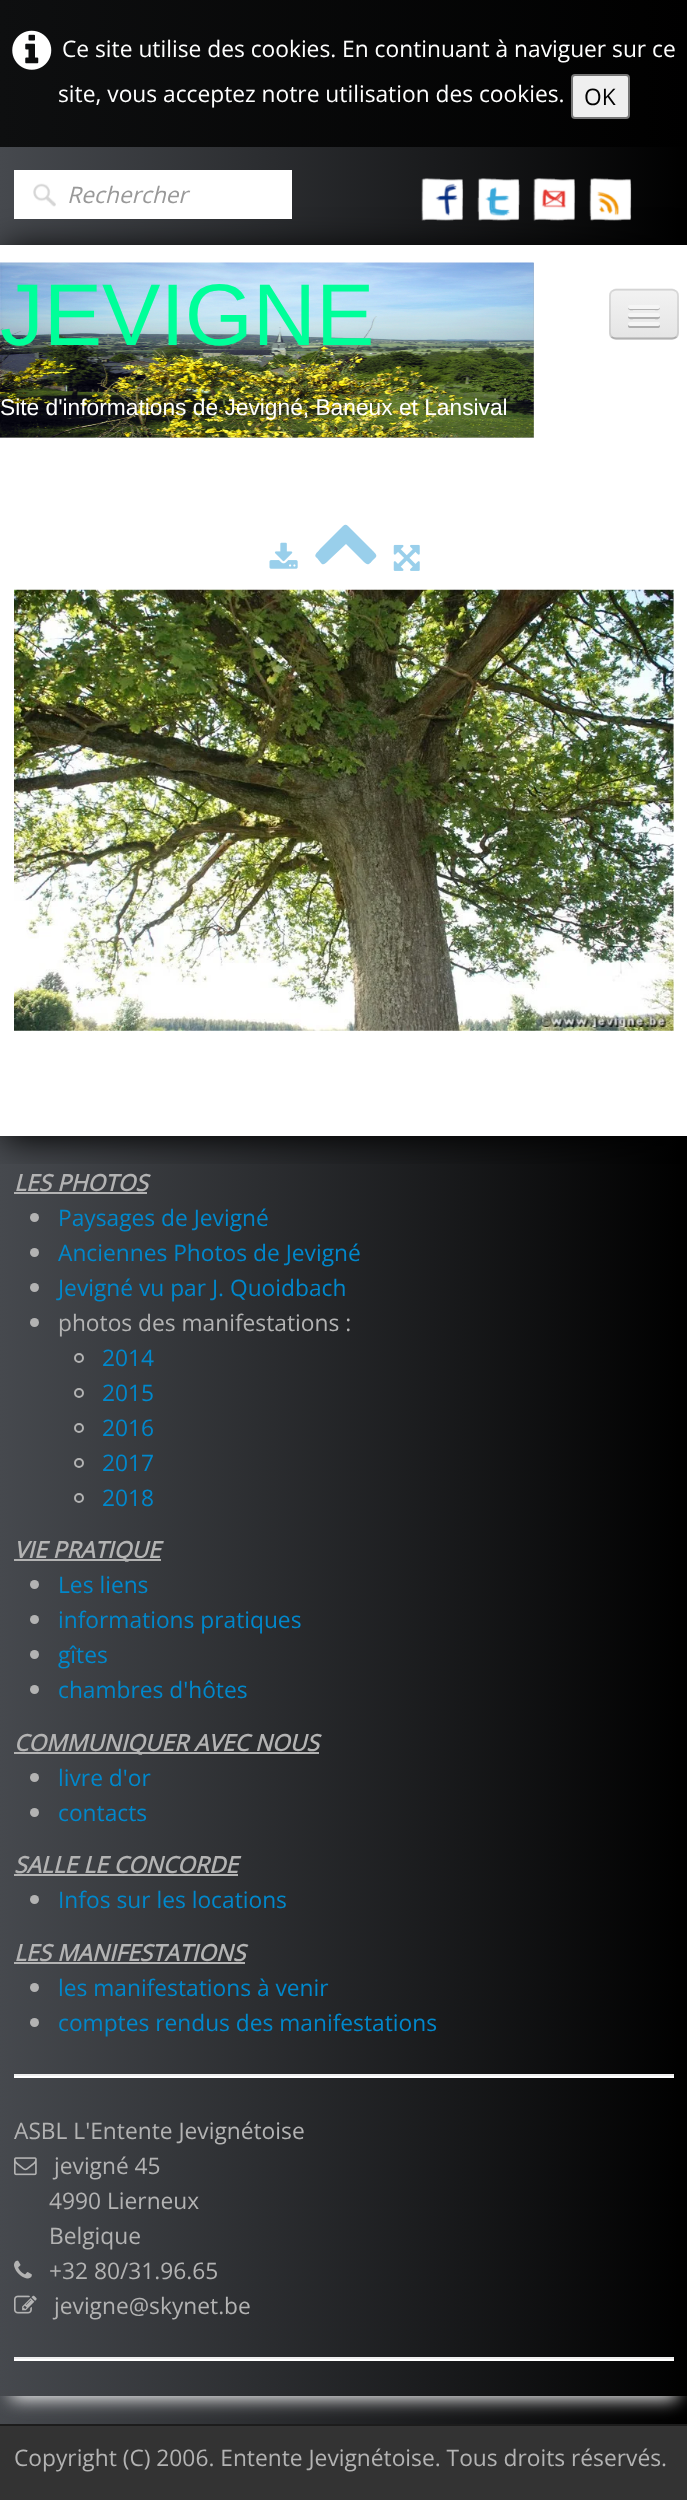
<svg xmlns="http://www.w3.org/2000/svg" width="687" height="2500">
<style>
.a{font:22.75px Open Sans;fill:#fff}
.b{font:22.75px Open Sans;fill:#000}
.c{font:italic 22.75px Open Sans;fill:#999}
.d{font:87.5px Liberation Sans;fill:#0f9}
.e{font:22.75px Liberation Sans;fill:#fff}
.f{font:italic bold 22.75px Open Sans;fill:#b3b3b3}
.g{font:22.75px Open Sans;fill:#08c}
.h{font:22.75px Open Sans;fill:#b3b3b3}
</style>
<defs>
<linearGradient id="g1" gradientUnits="userSpaceOnUse" x1="0" y1="1272" x2="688" y2="1272"><stop offset="0" stop-color="#46494e"/><stop offset="1" stop-color="#000"/></linearGradient>
<linearGradient id="g2" gradientUnits="userSpaceOnUse" x1="0" y1="1272" x2="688" y2="1272"><stop offset="0" stop-color="#0e0f10"/><stop offset="1" stop-color="#000"/></linearGradient>
<clipPath id="clip1"><rect x="609" y="289" width="70" height="51" rx="7"/></clipPath>
<linearGradient id="g3" gradientUnits="userSpaceOnUse" x1="644" y1="291" x2="644" y2="338"><stop offset="0" stop-color="#f2f2f2"/><stop offset="1" stop-color="#e5e5e5"/></linearGradient>
<linearGradient id="g4" gradientUnits="userSpaceOnUse" x1="0" y1="1854" x2="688" y2="1854"><stop offset="0" stop-color="#46494e"/><stop offset="1" stop-color="#000"/></linearGradient>
<clipPath id="clip2"><path d="M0 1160h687v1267h-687zm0 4h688v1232h-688z" clip-rule="evenodd"/></clipPath>
</defs>
<rect width="100%" height="100%" fill="#fff"/>
<path fill="url(#g1)" d="M0 147h687v1017H0z"/>
<path fill="url(#g2)" d="M0 0h687v147H0z"/>
<image href="1.png" x="12" y="30" width="40" height="40"/>
<rect fill="#efefef" stroke="#767676" stroke-width="2" x="572" y="75" width="57" height="43" rx="3"/>
<path fill="#000" filter="blur(17.5px)" d="M4 249h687v890H4z"/>
<path fill="#fff" d="M14 170h278v49H14z"/>
<image href="2.png" x="33" y="183" width="23" height="24"/>
<image href="3.png" x="421" y="178" width="43" height="43"/>
<image href="4.png" x="477" y="178" width="43" height="43"/>
<image href="5.png" x="533" y="178" width="43" height="43"/>
<image href="6.png" x="589" y="178" width="43" height="43"/>
<path fill="#fff" d="M0 245h687v891H0z"/>
<path fill="#b5b5b5" d="M0 263h534v175H0z"/>
<image href="7.png" x="0" y="262" width="534" height="176"/>
<rect fill="#ededed" x="609" y="289" width="70" height="51" rx="7"/>
<g clip-path="url(#clip1)">
<path fill="url(#g3)" d="M609 291h70v47H609z"/>
</g>
<path fill="none" stroke="#00000040" stroke-width="1.8" d="M676.5 337c-1.5 1-3 1.5-4.5 1.5h-56c-1.5 0-3-.5-4.5-1.5"/>
<path fill="none" stroke="#0000001a" stroke-width="1.8" d="M611.5 337c-1-1.5-1.5-3-1.5-4.5v-36.5c0-2 .5-3.5 1.5-4.5c1.5-1 3-2 4.5-2h56c1.5 0 3 1 4.5 2c1 1 1.5 2.5 1.5 4.5v36.5c0 1.5-.5 3-1.5 4.5"/>
<path fill="#b2b2b2" d="M628.5 307l-.5 1.5c.5 2.5 5.5 1.5 6.5 1.5h19c1 0 6 1 6.5-1.5l-.5-1.5c0 .5-.5 1-1.5 1h-28c-1 0-1.5-.5-1.5-1z"/>
<rect fill="#f5f5f5" x="628" y="305" width="32" height="4" rx="2"/>
<path fill="#b0b0b0" d="M628.5 316l-.5 1.5c.5 2.5 5.5 1.5 6.5 1.5h19c1 0 6 1 6.5-1.5l-.5-1.5c0 .5-1 1-1.5 1h-28c-.5 0-1.5-.5-1.5-1z"/>
<rect fill="#f5f5f5" x="628" y="313" width="32" height="4" rx="2"/>
<path fill="#aeaeae" d="M628.5 324.5c-1 1.5-.5 3 1 3.5h29c1.5-.5 2-2 1-3.5l-1.5 1h-28z"/>
<rect fill="#f5f5f5" x="628" y="322" width="32" height="4" rx="2"/>
<image href="8.png" x="269" y="542" width="29" height="27"/>
<path fill="#99cfeb" d="M376 557c-8 8-7 10-14 3l-16-16l-17 16c-7 7-6 5-12-2c-4-3 0-5 3-9l19-19c7-7 6-7 13 0l19 19c1 1 7 6 5 8z"/>
<image href="9.png" x="393" y="544" width="27" height="27"/>
<image href="10.png" x="14" y="589" width="660" height="442"/>
<path fill="url(#g4)" d="M0 1164h687v1260H0z"/>
<g clip-path="url(#clip2)">
<path fill="#f7f7f7" filter="blur(9px)" d="M11 1188h666v1211H11z"/>
</g>
<path fill="#b3b3b3" d="M14 1192h133v2H14z"/>
<circle fill="#b3b3b3" cx="34.5" cy="1217.5" r="4.5"/>
<circle fill="#b3b3b3" cx="34.5" cy="1252.5" r="4.5"/>
<circle fill="#b3b3b3" cx="34.5" cy="1287.5" r="4.5"/>
<circle fill="#b3b3b3" cx="34.5" cy="1322.5" r="4.5"/>
<circle fill="none" stroke="#b3b3b3" stroke-width="2" cx="79" cy="1358" r="4"/>
<circle fill="none" stroke="#b3b3b3" stroke-width="2" cx="79" cy="1393" r="4"/>
<circle fill="none" stroke="#b3b3b3" stroke-width="2" cx="79" cy="1428" r="4"/>
<circle fill="none" stroke="#b3b3b3" stroke-width="2" cx="79" cy="1463" r="4"/>
<circle fill="none" stroke="#b3b3b3" stroke-width="2" cx="79" cy="1498" r="4"/>
<path fill="#b3b3b3" d="M14 1559h147v2H14z"/>
<circle fill="#b3b3b3" cx="34.5" cy="1584.5" r="4.5"/>
<circle fill="#b3b3b3" cx="34.5" cy="1619.5" r="4.5"/>
<circle fill="#b3b3b3" cx="34.5" cy="1654.5" r="4.5"/>
<circle fill="#b3b3b3" cx="34.5" cy="1689.5" r="4.5"/>
<path fill="#b3b3b3" d="M14 1752h305v2H14z"/>
<circle fill="#b3b3b3" cx="34.5" cy="1777.5" r="4.5"/>
<circle fill="#b3b3b3" cx="34.5" cy="1812.5" r="4.5"/>
<path fill="#b3b3b3" d="M14 1874h224v2H14z"/>
<circle fill="#b3b3b3" cx="34.5" cy="1899.5" r="4.5"/>
<path fill="#b3b3b3" d="M14 1962h231v2H14z"/>
<circle fill="#b3b3b3" cx="34.5" cy="1987.5" r="4.5"/>
<circle fill="#b3b3b3" cx="34.5" cy="2022.5" r="4.5"/>
<path fill="#eee" d="M14 2074h660v2H14z"/>
<path fill="#fff" d="M14 2076h660v2H14z"/>
<image href="11.png" x="14" y="2157" width="23" height="19"/>
<image href="12.png" x="14" y="2260" width="18" height="19"/>
<image href="13.png" x="14" y="2295" width="23" height="19"/>
<path fill="#eee" d="M14 2357h660v2H14z"/>
<path fill="#fff" d="M14 2359h660v2H14z"/>
<path fill="#333" d="M0 2426h687v74H0z"/>
<path fill="#1c1c1c" d="M0 2424h687v2H0z"/>
<text class="a" x="62" y="57">Ce site utilise des cookies. En continuant à naviguer sur ce</text>
<text class="a" x="58" y="102">site, vous acceptez notre utilisation des cookies.</text>
<text class="b" x="584" y="105">OK</text>
<text class="c" x="67" y="203">Rechercher</text>
<text class="d" x="0" y="345">JEVIGNE</text>
<text class="e" x="0" y="415">Site d'informations de Jevigné, Baneux et Lansival</text>
<text class="f" x="14" y="1191">LES PHOTOS</text>
<text class="g" x="58" y="1226">Paysages de Jevigné</text>
<text class="g" x="58" y="1261">Anciennes Photos de Jevigné</text>
<text class="g" x="58" y="1296">Jevigné vu par J. Quoidbach</text>
<text class="h" x="58" y="1331">photos des manifestations :</text>
<text class="g" x="102" y="1366">2014</text>
<text class="g" x="102" y="1401">2015</text>
<text class="g" x="102" y="1436">2016</text>
<text class="g" x="102" y="1471">2017</text>
<text class="g" x="102" y="1506">2018</text>
<text class="f" x="14" y="1558">VIE PRATIQUE</text>
<text class="g" x="58" y="1593">Les liens</text>
<text class="g" x="58" y="1628">informations pratiques</text>
<text class="g" x="58" y="1663">gîtes</text>
<text class="g" x="58" y="1698">chambres d'hôtes</text>
<text class="f" x="14" y="1751">COMMUNIQUER AVEC NOUS</text>
<text class="g" x="58" y="1786">livre d'or</text>
<text class="g" x="58" y="1821">contacts</text>
<text class="f" x="14" y="1873">SALLE LE CONCORDE</text>
<text class="g" x="58" y="1908">Infos sur les locations</text>
<text class="f" x="14" y="1961">LES MANIFESTATIONS</text>
<text class="g" x="58" y="1996">les manifestations à venir</text>
<text class="g" x="58" y="2031">comptes rendus des manifestations</text>
<text class="h" x="14" y="2139">ASBL L'Entente Jevignétoise</text>
<text class="h" x="54" y="2174">jevigné 45</text>
<text class="h" x="49" y="2209">4990 Lierneux</text>
<text class="h" x="49" y="2244">Belgique</text>
<text class="h" x="49" y="2279">+32 80/31.96.65</text>
<text class="h" x="54" y="2314">jevigne@skynet.be</text>
<text class="h" x="14" y="2466">Copyright (C) 2006. Entente Jevignétoise. Tous droits réservés.</text>
</svg>
